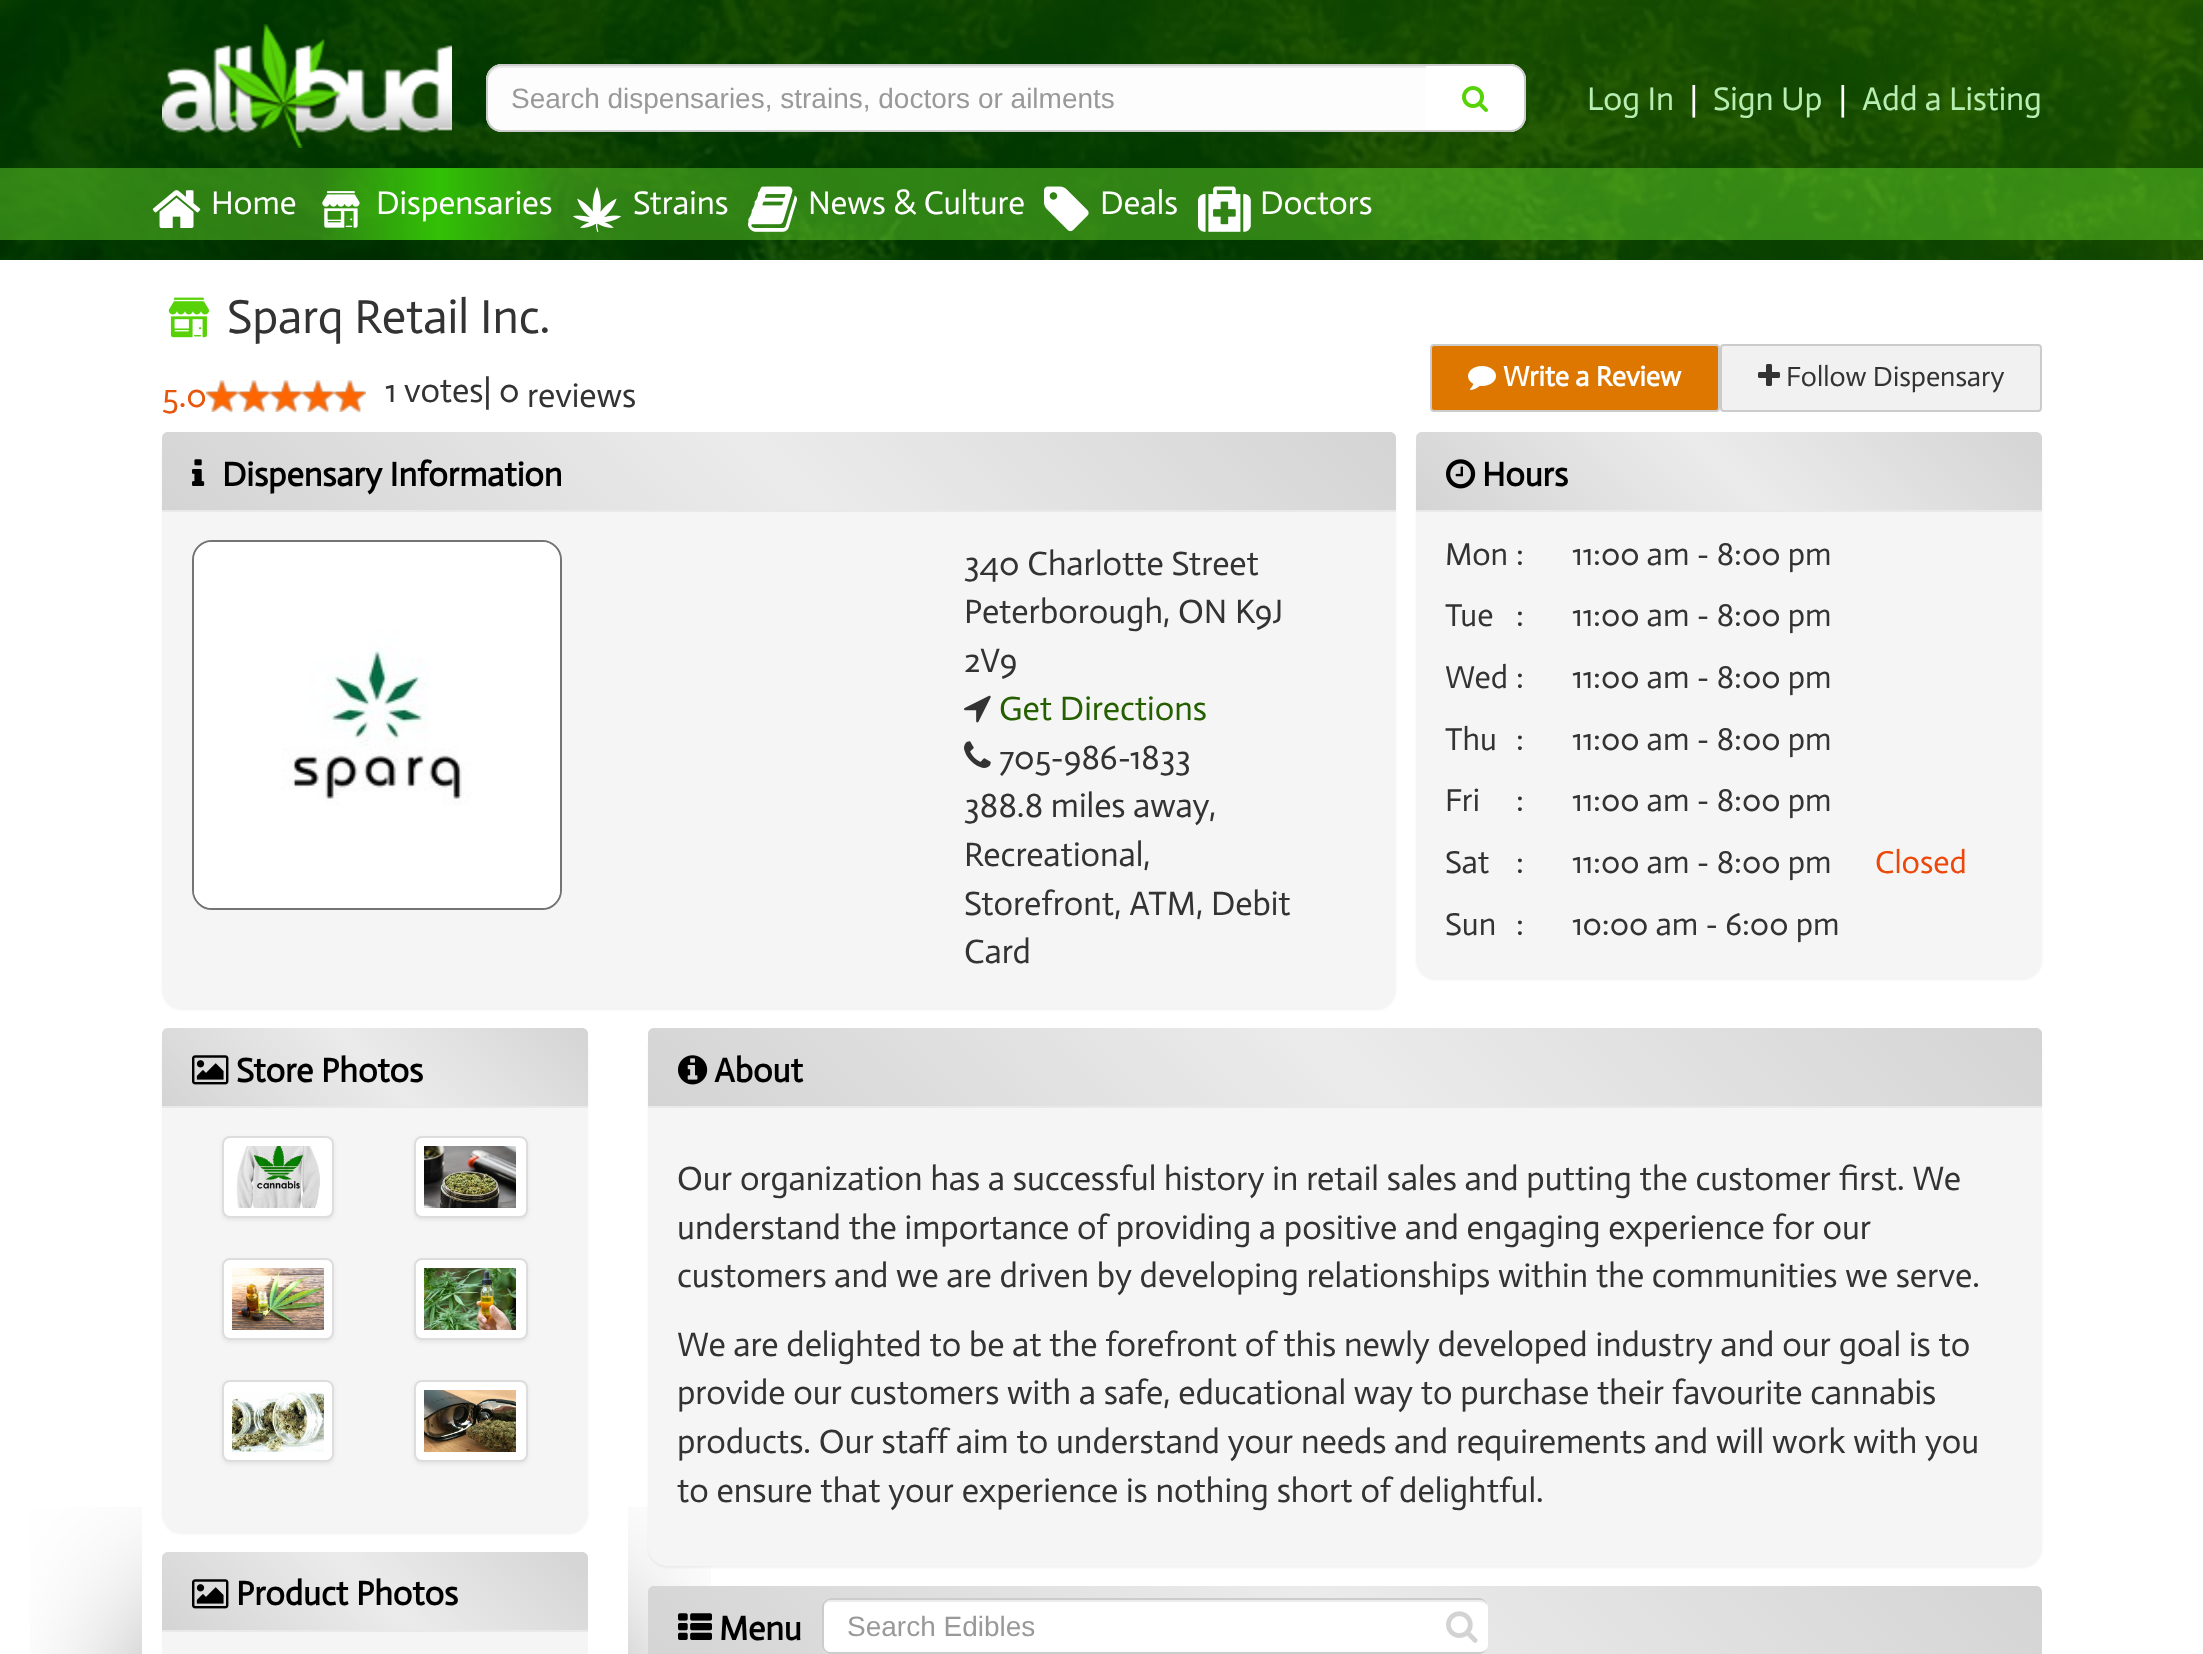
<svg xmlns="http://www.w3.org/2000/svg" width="2203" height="1654">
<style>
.a{font:28px Liberation Sans;fill:#999}
.b{font:33px Actor;fill:#b7eeb3}
.c{font:33px Actor;fill:#fff}
.d{font:48px Actor;fill:#333}
.e{font:34px Actor;fill:#e6560b}
.f{font:34px Actor;fill:#333}
.g{font:bold 28px Actor;fill:#fff}
.h{font:28px Actor;fill:#333}
.i{font:bold 34px Actor;fill:#000}
.j{font:34px Actor;fill:#265f00}
.k{font:32px Actor;fill:#333}
.l{font:32px Actor;fill:#ec480a}
</style>
<defs>
<linearGradient id="g1" gradientUnits="userSpaceOnUse" x1="316" y1="204" x2="562" y2="204"><stop offset="0" stop-color="#31c105" stop-opacity="0"/><stop offset="0.5" stop-color="#31c105"/><stop offset="1" stop-color="#31c105" stop-opacity="0"/></linearGradient>
<linearGradient id="g2" gradientUnits="userSpaceOnUse" x1="451" y1="799" x2="1107" y2="143"><stop offset="0" stop-color="#d4d4d4"/><stop offset="0.5" stop-color="#ebebeb"/><stop offset="1" stop-color="#d4d4d4"/></linearGradient>
<linearGradient id="g3" gradientUnits="userSpaceOnUse" x1="1553" y1="647" x2="1905" y2="295"><stop offset="0" stop-color="#d4d4d4"/><stop offset="0.5" stop-color="#ebebeb"/><stop offset="1" stop-color="#d4d4d4"/></linearGradient>
<linearGradient id="g4" gradientUnits="userSpaceOnUse" x1="249" y1="1193" x2="501" y2="941"><stop offset="0" stop-color="#d4d4d4"/><stop offset="0.5" stop-color="#ebebeb"/><stop offset="1" stop-color="#d4d4d4"/></linearGradient>
<linearGradient id="g5" gradientUnits="userSpaceOnUse" x1="249" y1="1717" x2="501" y2="1465"><stop offset="0" stop-color="#d4d4d4"/><stop offset="0.5" stop-color="#ebebeb"/><stop offset="1" stop-color="#d4d4d4"/></linearGradient>
<clipPath id="clip1"><path d="M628 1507h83v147H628z"/></clipPath>
<clipPath id="clip2"><path d="M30 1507h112v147H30z"/></clipPath>
<linearGradient id="g6" gradientUnits="userSpaceOnUse" x1="977" y1="1435" x2="1713" y2="699"><stop offset="0" stop-color="#d4d4d4"/><stop offset="0.5" stop-color="#ebebeb"/><stop offset="1" stop-color="#d4d4d4"/></linearGradient>
<linearGradient id="g7" gradientUnits="userSpaceOnUse" x1="977" y1="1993" x2="1713" y2="1257"><stop offset="0" stop-color="#d4d4d4"/><stop offset="0.5" stop-color="#ebebeb"/><stop offset="1" stop-color="#d4d4d4"/></linearGradient>
</defs>
<rect width="100%" height="100%" fill="#fff"/>
<image href="1.png" x="0" y="0" width="2203" height="260"/>
<image href="2.png" x="162" y="24" width="290" height="124"/>
<path fill="#fdfdfd" d="M502 64h926v68h-926c-9 0-16-7-16-16v-36c0-9 7-16 16-16z"/>
<path fill="#eaeaea" d="M502 68h926v-2h-926c-8 0-14 6-14 14v2c0-8 6-14 14-14z"/>
<path fill="#ccc" fill-rule="evenodd" d="M502 64h926v68h-926c-9 0-16-7-16-16v-36c0-9 7-16 16-16zm0 2h926v64h-926c-8 0-14-6-14-14v-36c0-8 6-14 14-14z"/>
<path fill="#fff" d="M1426 64h84c9 0 16 7 16 16v36c0 9-7 16-16 16h-84z"/>
<path fill="#ccc" fill-rule="evenodd" d="M1426 64h84c9 0 16 7 16 16v36c0 9-7 16-16 16h-84zm0 2h84c8 0 14 6 14 14v36c0 8-6 14-14 14h-84z"/>
<image href="3.png" x="1462" y="86" width="26" height="26"/>
<path fill="#5ecd2780" d="M0 168h2203v72H0z"/>
<image href="4.png" x="152" y="190" width="49" height="38"/>
<path fill="url(#g1)" d="M321 168h236v72H321z"/>
<image href="5.png" x="322" y="191" width="38" height="37"/>
<image href="6.png" x="573" y="187" width="49" height="45"/>
<image href="7.png" x="748" y="186" width="49" height="46"/>
<image href="8.png" x="1044" y="186" width="45" height="46"/>
<image href="9.png" x="1198" y="186" width="53" height="46"/>
<image href="10.png" x="168" y="297" width="42" height="41"/>
<image href="11.png" x="206" y="380" width="160" height="32"/>
<image href="12.png" x="206" y="380" width="160" height="32"/>
<rect fill="#d70" stroke="#ccc" stroke-width="2" x="1431" y="345" width="288" height="66" rx="3"/>
<image href="13.png" x="1468" y="366" width="28" height="24"/>
<rect fill="#f1f1f1" stroke="#ccc" stroke-width="2" x="1721" y="345" width="320" height="66" rx="3"/>
<image href="14.png" x="1758" y="364" width="22" height="22"/>
<rect fill="#0000000d" filter="blur(1px)" x="162" y="434" width="1234" height="576" rx="20"/>
<path fill="url(#g2)" d="M168 432h1222c3.5 0 6 2.5 6 6v72h-1234v-72c0-3.5 2.5-6 6-6z"/>
<image href="15.png" x="192" y="459" width="13" height="27"/>
<path fill="#f5f5f5" d="M162 510h1234v478c0 11-9 20-20 20h-1194c-11 0-20-9-20-20z"/>
<path fill="#e9e9e9" d="M162 510h1234v2H162z"/>
<rect fill="none" stroke="#747474" stroke-width="2" x="193" y="541" width="368" height="368" rx="19"/>
<image href="16.png" x="194" y="542" width="366" height="366"/>
<image href="17.png" x="964" y="695" width="27" height="28"/>
<image href="18.png" x="964" y="741" width="27" height="27"/>
<rect fill="#0000000d" filter="blur(1px)" x="1416" y="434" width="626" height="546" rx="20"/>
<path fill="url(#g3)" d="M1422 432h614c3.5 0 6 2.5 6 6v72h-626v-72c0-3.5 2.5-6 6-6z"/>
<image href="19.png" x="1446" y="459" width="30" height="30"/>
<path fill="#f5f5f5" d="M1416 510h626v448c0 11-9 20-20 20h-586c-11 0-20-9-20-20z"/>
<path fill="#e9e9e9" d="M1416 510h626v2H1416z"/>
<rect fill="#0000000d" filter="blur(1px)" x="162" y="1030" width="426" height="504" rx="20"/>
<path fill="url(#g4)" d="M168 1028h414c3.5 0 6 2.5 6 6v72h-426v-72c0-3.5 2.5-6 6-6z"/>
<image href="20.png" x="192" y="1055" width="37" height="30"/>
<path fill="#f5f5f5" d="M162 1106h426v406c0 11-9 20-20 20h-386c-11 0-20-9-20-20z"/>
<path fill="#e9e9e9" d="M162 1106h426v2H162z"/>
<rect fill="#00000012" filter="blur(2px)" x="222" y="1138" width="112" height="82" rx="8"/>
<rect fill="#fff" stroke="#ddd" stroke-width="2" x="223" y="1137" width="110" height="80" rx="7"/>
<image href="21.png" x="236" y="1146" width="84" height="62"/>
<rect fill="#00000012" filter="blur(2px)" x="414" y="1138" width="114" height="82" rx="8"/>
<rect fill="#fff" stroke="#ddd" stroke-width="2" x="415" y="1137" width="112" height="80" rx="7"/>
<image href="22.png" x="424" y="1146" width="92" height="62"/>
<rect fill="#00000012" filter="blur(2px)" x="222" y="1260" width="112" height="82" rx="8"/>
<rect fill="#fff" stroke="#ddd" stroke-width="2" x="223" y="1259" width="110" height="80" rx="7"/>
<image href="23.png" x="232" y="1268" width="92" height="62"/>
<rect fill="#00000012" filter="blur(2px)" x="414" y="1260" width="114" height="82" rx="8"/>
<rect fill="#fff" stroke="#ddd" stroke-width="2" x="415" y="1259" width="112" height="80" rx="7"/>
<image href="24.png" x="424" y="1268" width="92" height="62"/>
<rect fill="#00000012" filter="blur(2px)" x="222" y="1382" width="112" height="82" rx="8"/>
<path fill="url(#g5)" d="M168 1552h414c3.5 0 6 2.5 6 6v72h-426v-72c0-3.5 2.5-6 6-6z"/>
<image href="20.png" x="192" y="1579" width="37" height="30"/>
<path fill="#f5f5f5" d="M162 1632h426v22H162z"/>
<path fill="#e9e9e9" d="M162 1630h426v2H162z"/>
<g clip-path="url(#clip1)">
<path fill="#000" filter="blur(90px)" d="M492 1628h86v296H492z"/>
</g>
<g clip-path="url(#clip2)">
<path fill="#000" filter="blur(90px)" d="M192 1628h86v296H192z"/>
</g>
<rect fill="#fff" stroke="#ddd" stroke-width="2" x="223" y="1381" width="110" height="80" rx="7"/>
<image href="25.png" x="232" y="1391" width="92" height="61"/>
<rect fill="#00000012" filter="blur(2px)" x="414" y="1382" width="114" height="82" rx="8"/>
<rect fill="#fff" stroke="#ddd" stroke-width="2" x="415" y="1381" width="112" height="80" rx="7"/>
<image href="26.png" x="424" y="1390" width="92" height="62"/>
<rect fill="#0000000d" filter="blur(1px)" x="648" y="1030" width="1394" height="538" rx="20"/>
<path fill="url(#g6)" d="M654 1028h1382c3.5 0 6 2.5 6 6v72h-1394v-72c0-3.5 2.5-6 6-6z"/>
<image href="27.png" x="678" y="1055" width="30" height="30"/>
<path fill="#f5f5f5" d="M648 1106h1394v440c0 11-9 20-20 20h-1354c-11 0-20-9-20-20z"/>
<path fill="#e9e9e9" d="M648 1106h1394v2H648z"/>
<path fill="url(#g7)" d="M654 1586h1382c3.5 0 6 2.5 6 6v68h-1394v-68c0-3.5 2.5-6 6-6z"/>
<image href="28.png" x="678" y="1613" width="34" height="27"/>
<rect fill="#fff" x="822" y="1598" width="666" height="56" rx="8"/>
<path fill="#ececec" d="M830 1602h650c4 0 8 3 8 6c0-5-3-8-8-8h-650c-5 0-6 4-6 8c0-3 3-6 6-6z"/>
<path fill="#ccc" fill-rule="evenodd" d="M830 1598h650c4 0 8 4 8 8v40c0 4-4 8-8 8h-650c-4 0-8-4-8-8v-40c0-4 4-8 8-8zm0 2h650c4 0 8 3 8 6v40c0 3-4 6-8 6h-650c-3 0-6-3-6-6v-40c0-3 3-6 6-6z"/>
<image href="29.png" x="1446" y="1611" width="32" height="32"/>
<text class="a" x="511" y="108">Search dispensaries, strains, doctors or ailments</text>
<text class="b" x="1587" y="110">Log In</text>
<text class="c" x="1690" y="110">|</text>
<text class="b" x="1713" y="110">Sign Up</text>
<text class="c" x="1839" y="110">|</text>
<text class="b" x="1862" y="110">Add a Listing</text>
<text class="c" x="211" y="214">Home</text>
<text class="c" x="376" y="214">Dispensaries</text>
<text class="c" x="633" y="214">Strains</text>
<text class="c" x="808" y="214">News &amp; Culture</text>
<text class="c" x="1100" y="214">Deals</text>
<text class="c" x="1260" y="214">Doctors</text>
<text class="d" x="227" y="333">Sparq Retail Inc.</text>
<text class="e" x="162" y="407">5.0</text>
<text class="f" x="385" y="402">1 votes| 0</text>
<text class="f" x="527" y="407">reviews</text>
<text class="g" x="1503" y="386">Write a Review</text>
<text class="h" x="1786" y="386">Follow Dispensary</text>
<text class="i" x="222" y="486">Dispensary Information</text>
<text class="f" x="964" y="575">340 Charlotte Street</text>
<text class="f" x="964" y="623">Peterborough, ON K9J</text>
<text class="f" x="964" y="672">2V9</text>
<text class="j" x="999" y="720">Get Directions</text>
<text class="f" x="999" y="769">705-986-1833</text>
<text class="f" x="964" y="817">388.8 miles away</text>
<text class="f" x="1209" y="817">,</text>
<text class="f" x="964" y="866">Recreational,</text>
<text class="f" x="964" y="915">Storefront, ATM, Debit</text>
<text class="f" x="964" y="963">Card</text>
<text class="i" x="1482" y="486">Hours</text>
<text class="k" x="1445" y="565">Mon</text>
<text class="k" x="1516" y="565">:</text>
<text class="k" x="1572" y="565">11:00 am - 8:00 pm</text>
<text class="k" x="1445" y="626">Tue</text>
<text class="k" x="1516" y="626">:</text>
<text class="k" x="1572" y="626">11:00 am - 8:00 pm</text>
<text class="k" x="1445" y="688">Wed</text>
<text class="k" x="1516" y="688">:</text>
<text class="k" x="1572" y="688">11:00 am - 8:00 pm</text>
<text class="k" x="1445" y="750">Thu</text>
<text class="k" x="1516" y="750">:</text>
<text class="k" x="1572" y="750">11:00 am - 8:00 pm</text>
<text class="k" x="1445" y="811">Fri</text>
<text class="k" x="1516" y="811">:</text>
<text class="k" x="1572" y="811">11:00 am - 8:00 pm</text>
<text class="k" x="1445" y="873">Sat</text>
<text class="k" x="1516" y="873">:</text>
<text class="k" x="1572" y="873">11:00 am - 8:00 pm</text>
<text class="l" x="1875" y="873">Closed</text>
<text class="k" x="1445" y="935">Sun</text>
<text class="k" x="1516" y="935">:</text>
<text class="k" x="1572" y="935">10:00 am - 6:00 pm</text>
<text class="i" x="236" y="1082">Store Photos</text>
<text class="i" x="236" y="1605">Product Photos</text>
<text class="i" x="714" y="1082">About</text>
<text class="f" x="677" y="1190">Our organization has a successful history in retail sales and putting the customer first. We</text>
<text class="f" x="677" y="1239">understand the importance of providing a positive and engaging experience for our</text>
<text class="f" x="677" y="1287">customers and we are driven by developing relationships within the communities we serve.</text>
<text class="f" x="677" y="1356">We are delighted to be at the forefront of this newly developed industry and our goal is to</text>
<text class="f" x="677" y="1404">provide our customers with a safe, educational way to purchase their favourite cannabis</text>
<text class="f" x="677" y="1453">products. Our staff aim to understand your needs and requirements and will work with you</text>
<text class="f" x="677" y="1502">to ensure that your experience is nothing short of delightful.</text>
<text class="i" x="719" y="1640">Menu</text>
<text class="a" x="847" y="1636">Search Edibles</text>
</svg>
